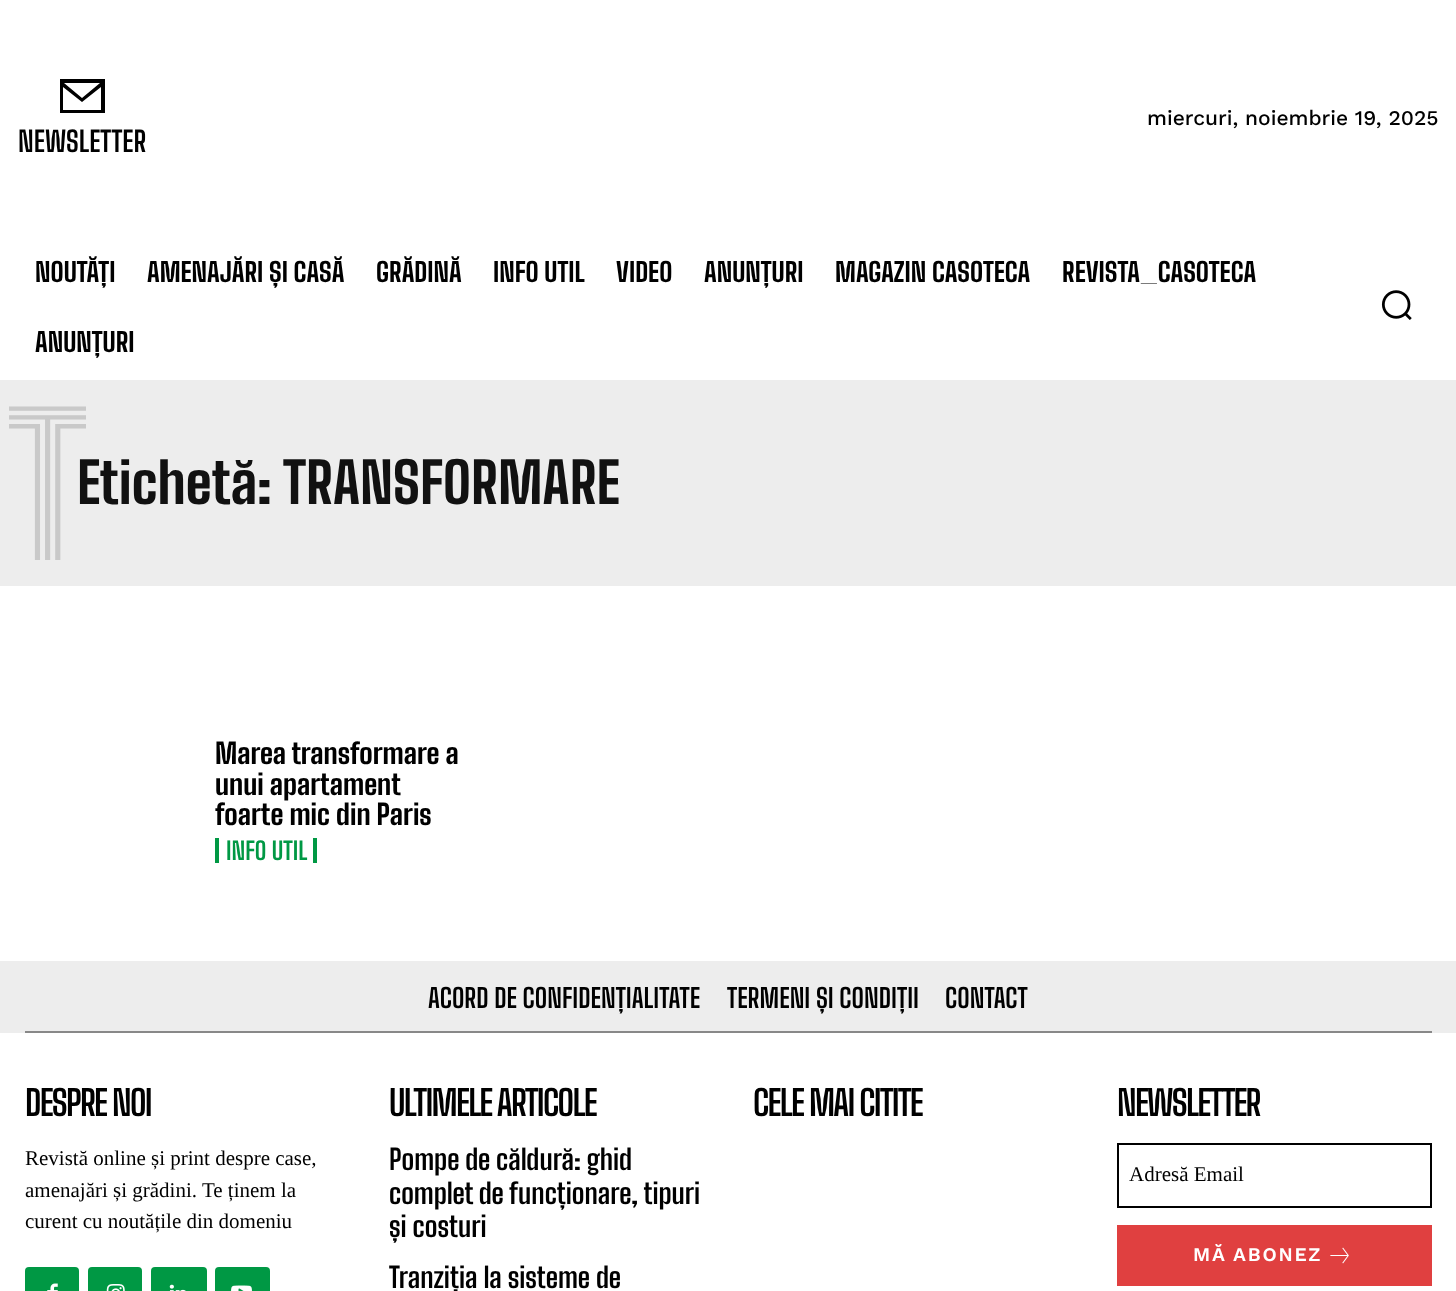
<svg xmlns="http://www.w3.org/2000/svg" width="1456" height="1291">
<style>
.a{font:500 21px Work Sans;fill:#000}
.b{font:bold 28px Big Shoulders Text;fill:#000}
.c{font:800 26.25px Big Shoulders Text;fill:#000}
.d{font:800 192px Big Shoulders Inline Text;fill:#c9c9c9}
.e{font:800 56px Big Shoulders Text;fill:#111}
.f{font:800 28px Big Shoulders Text;fill:#000}
.g{font:bold 24.5px Big Shoulders Text;fill:#009844}
.h{font:bold 26.25px Big Shoulders Text;fill:#000}
.i{font:bold 35px Big Shoulders Text;letter-spacing:-1.75px;fill:#000}
.j{font:21px Liberation Serif;fill:#000}
.k{font:600 19.25px Work Sans;letter-spacing:1.75px;fill:#fff}
</style>
<rect width="100%" height="100%" fill="#fff"/>
<path fill="#000" d="M60 79v34h45v-34zm40 4l-18 15l-18-15zm-37 27v-23l19 15l19-15v23z"/>
<image href="1.png" x="1381" y="290" width="31" height="30"/>
<path fill="#ededed" d="M0 380h1456v206H0z"/>
<path fill="#009844" d="M313 838h4v25H313z"/>
<path fill="#009844" d="M215 838h4v25H215z"/>
<path fill="#ededed" d="M0 961h1456v72H0z"/>
<path fill="#888" d="M25 1031h1407v2H25z"/>
<rect fill="#009844" x="25" y="1267" width="54" height="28" rx="4"/>
<image href="2.png" x="47" y="1283" width="11" height="8"/>
<rect fill="#009844" x="88" y="1267" width="54" height="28" rx="4"/>
<image href="3.png" x="106" y="1284" width="19" height="7"/>
<rect fill="#009844" x="151" y="1267" width="56" height="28" rx="4"/>
<image href="4.png" x="169" y="1284" width="17" height="7"/>
<rect fill="#009844" x="215" y="1267" width="55" height="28" rx="4"/>
<image href="5.png" x="231" y="1285" width="21" height="6"/>
<path fill="none" stroke="#000" stroke-width="2" d="M1118 1144h313v63H1118z"/>
<path fill="#e04040" d="M1117 1225h315v61H1117z"/>
<image href="6.png" x="1330" y="1247" width="19" height="17"/>
<text class="a" x="1147" y="125">miercuri, noiembrie 19, 2025</text>
<text class="b" x="18" y="152">NEWSLETTER</text>
<text class="c" x="35" y="282">NOUTĂȚI</text>
<text class="c" x="147" y="282">AMENAJĂRI ȘI CASĂ</text>
<text class="c" x="376" y="282">GRĂDINĂ</text>
<text class="c" x="493" y="282">INFO UTIL</text>
<text class="c" x="616" y="282">VIDEO</text>
<text class="c" x="704" y="282">ANUNȚURI</text>
<text class="c" x="835" y="282">MAGAZIN CASOTECA</text>
<text class="c" x="1062" y="282">REVISTA_CASOTECA</text>
<text class="c" x="35" y="352">ANUNȚURI</text>
<text class="d" x="8" y="560">T</text>
<text class="e" x="77" y="504">Etichetă:</text>
<text class="e" x="283" y="504">TRANSFORMARE</text>
<text class="f" x="215" y="764">Marea transformare a</text>
<text class="f" x="215" y="795">unui apartament</text>
<text class="f" x="215" y="825">foarte mic din Paris</text>
<text class="g" x="226" y="860">INFO UTIL</text>
<text class="h" x="428" y="1008">ACORD DE CONFIDENȚIALITATE</text>
<text class="h" x="727" y="1008">TERMENI ȘI CONDIȚII</text>
<text class="h" x="945" y="1008">CONTACT</text>
<text class="i" x="25" y="1116">DESPRE NOI</text>
<text class="j" x="25" y="1165">Revistă online și print despre case,</text>
<text class="j" x="25" y="1197">amenajări și grădini. Te ținem la</text>
<text class="j" x="25" y="1228">curent cu noutățile din domeniu</text>
<text class="i" x="389" y="1116">ULTIMELE ARTICOLE</text>
<text class="b" x="389" y="1170">Pompe de căldură: ghid</text>
<text class="b" x="389" y="1204">complet de funcționare, tipuri</text>
<text class="b" x="389" y="1237">și costuri</text>
<text class="b" x="389" y="1288">Tranziția la sisteme de</text>
<text class="i" x="753" y="1116">CELE MAI CITITE</text>
<text class="i" x="1117" y="1116">NEWSLETTER</text>
<text class="j" x="1129" y="1181">Adresă Email</text>
<text class="k" x="1193" y="1261">MĂ ABONEZ</text>
</svg>
